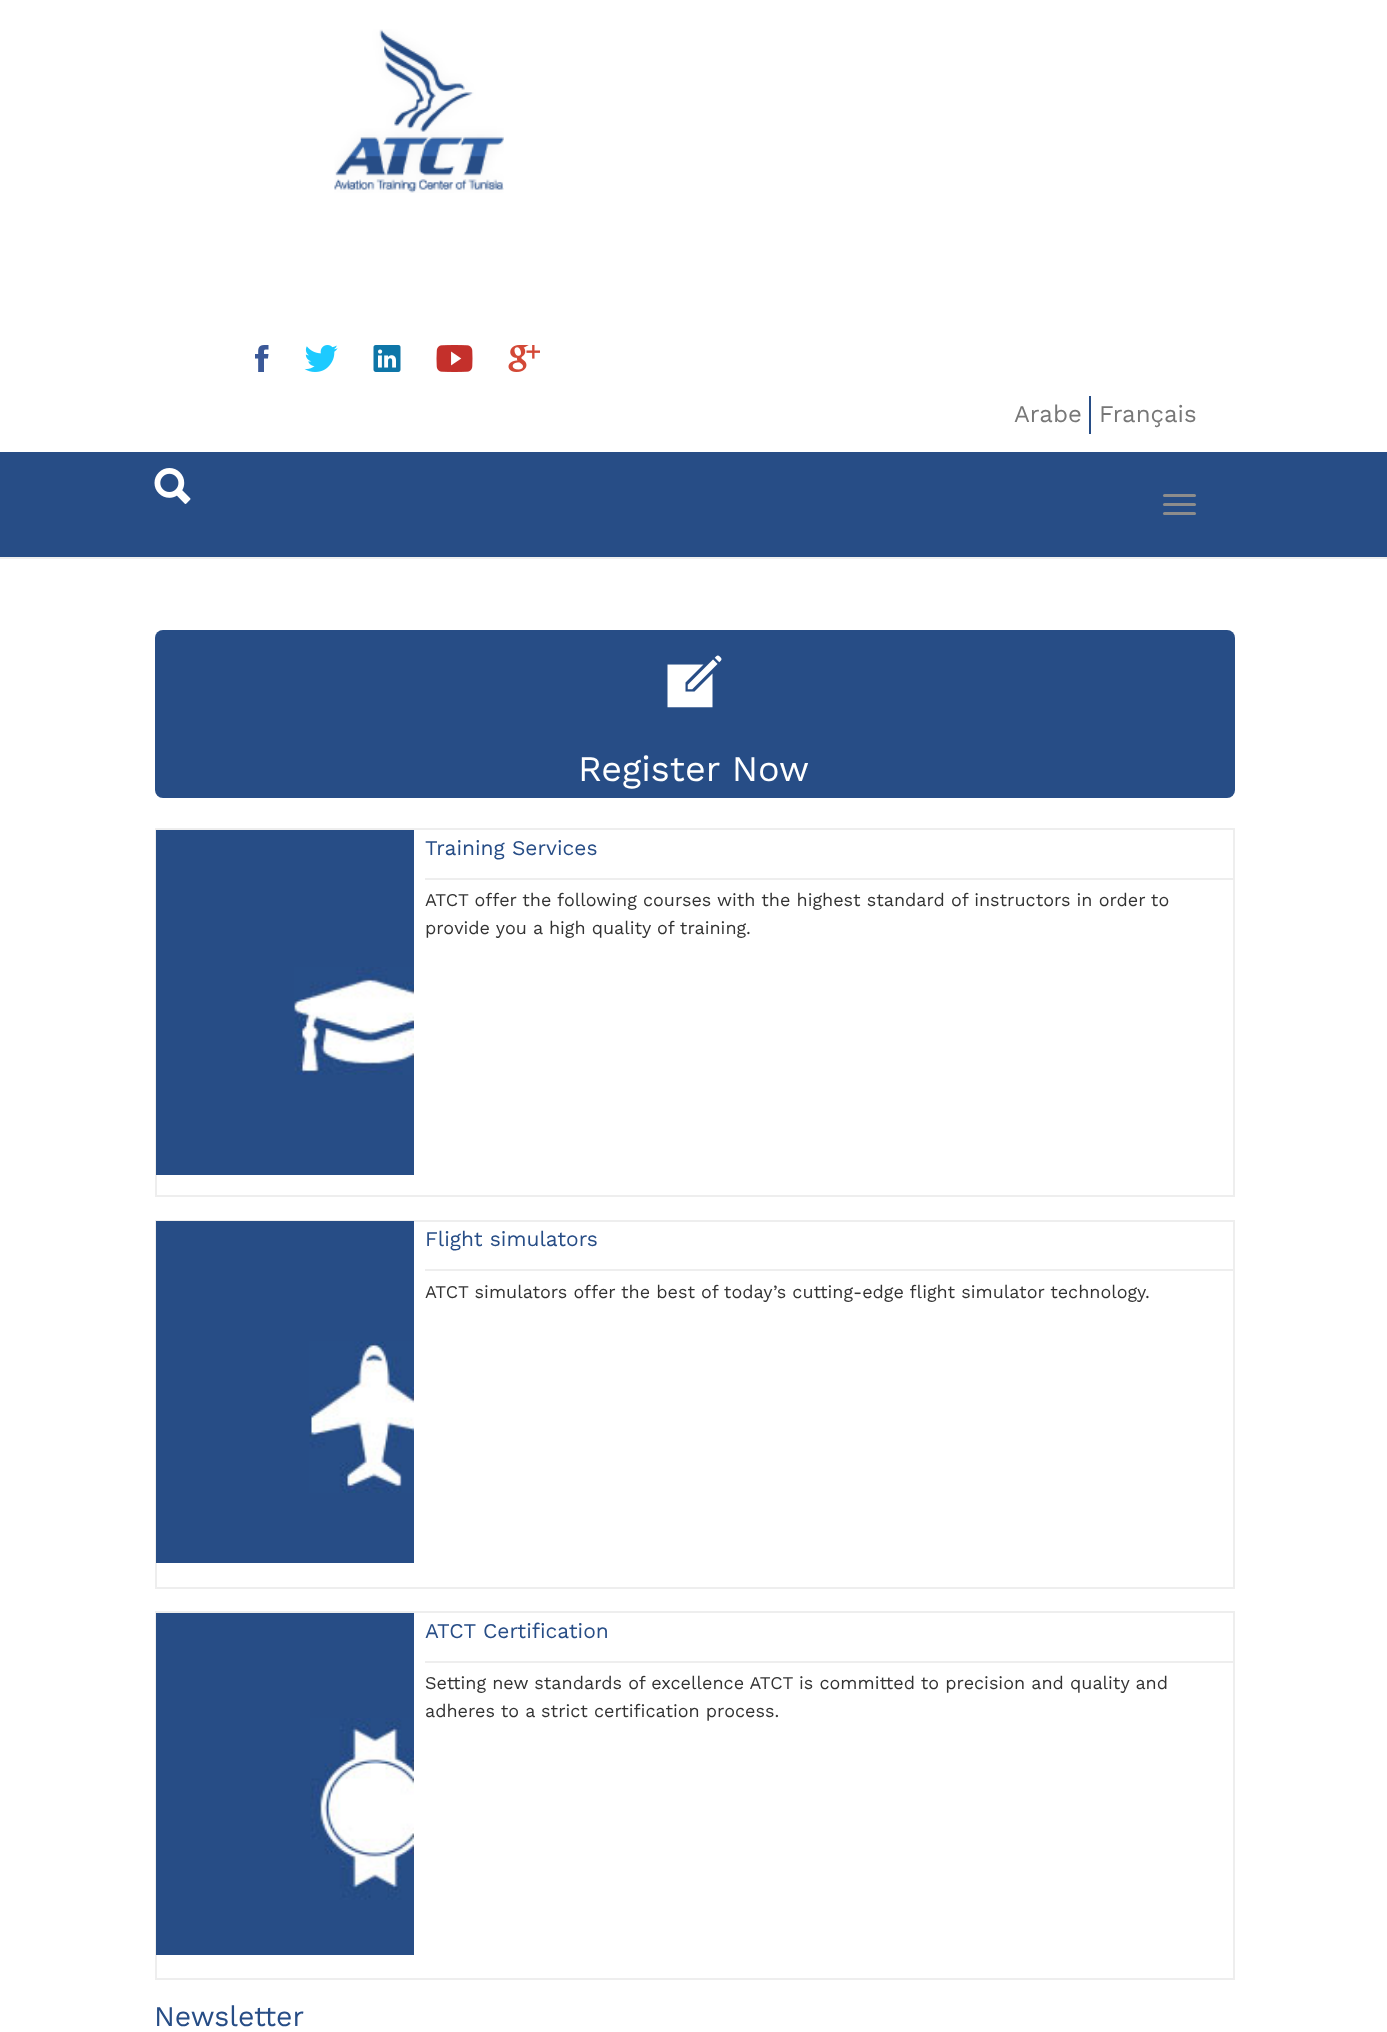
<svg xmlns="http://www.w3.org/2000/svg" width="1387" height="2032">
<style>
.a{font:24px Work Sans;fill:#777}
.b{font:36px Work Sans;fill:#fff}
.c{font:21px Work Sans;fill:#274d86}
.d{font:18px Work Sans;fill:#333}
.e{font:28.5px Work Sans;fill:#274d86}
</style>
<rect width="100%" height="100%" fill="#fff"/>
<path fill="#eee" d="M0 557h1387v2H0z"/>
<image href="1.png" x="334" y="29" width="170" height="164"/>
<image href="2.png" x="255" y="345" width="14" height="27"/>
<image href="3.png" x="304" y="345" width="34" height="27"/>
<image href="4.png" x="373" y="345" width="28" height="27"/>
<image href="5.png" x="436" y="345" width="37" height="27"/>
<image href="6.png" x="508" y="345" width="32" height="27"/>
<path fill="#274d86" d="M1089 396h2v38H1089z"/>
<path fill="#274d86" d="M0 452h1387v105H0z"/>
<image href="7.png" x="154" y="468" width="37" height="36"/>
<rect fill="#8c8c8c" x="1163" y="494" width="33" height="3" rx="1.5"/>
<rect fill="#8c8c8c" x="1163" y="503" width="33" height="3" rx="1.5"/>
<rect fill="#8c8c8c" x="1163" y="512" width="33" height="3" rx="1.5"/>
<rect fill="#274d86" x="155" y="630" width="1080" height="168" rx="8"/>
<image href="8.png" x="667" y="655" width="55" height="53"/>
<path fill="none" stroke="#eee" stroke-width="2" d="M156 829h1078v367H156z"/>
<path fill="#274d86" d="M156 830h258v345H156z"/>
<image href="9.png" x="294" y="967" width="120" height="108"/>
<path fill="#eee" d="M425 878h808v2H425z"/>
<path fill="none" stroke="#eee" stroke-width="2" d="M156 1221h1078v367H156z"/>
<path fill="#274d86" d="M156 1221h258v342H156z"/>
<image href="10.png" x="309" y="1341" width="105" height="152"/>
<path fill="#eee" d="M425 1269h808v2H425z"/>
<path fill="none" stroke="#eee" stroke-width="2" d="M156 1612h1078v367H156z"/>
<path fill="#274d86" d="M156 1613h258v342H156z"/>
<image href="11.png" x="310" y="1718" width="104" height="182"/>
<path fill="#eee" d="M425 1661h808v2H425z"/>
<text class="a" x="1014" y="422">Arabe</text>
<text class="a" x="1099" y="422">Français</text>
<text class="b" x="578" y="781">Register Now</text>
<text class="c" x="425" y="855">Training Services</text>
<text class="d" x="425" y="906">ATCT offer the following courses with the highest standard of instructors in order to</text>
<text class="d" x="425" y="934">provide you a high quality of training.</text>
<text class="c" x="425" y="1246">Flight simulators</text>
<text class="d" x="425" y="1298">ATCT simulators offer the best of today’s cutting-edge flight simulator technology.</text>
<text class="c" x="425" y="1638">ATCT Certification</text>
<text class="d" x="425" y="1689">Setting new standards of excellence ATCT is committed to precision and quality and</text>
<text class="d" x="425" y="1717">adheres to a strict certification process.</text>
<text class="e" x="154" y="2026">Newsletter</text>
</svg>
